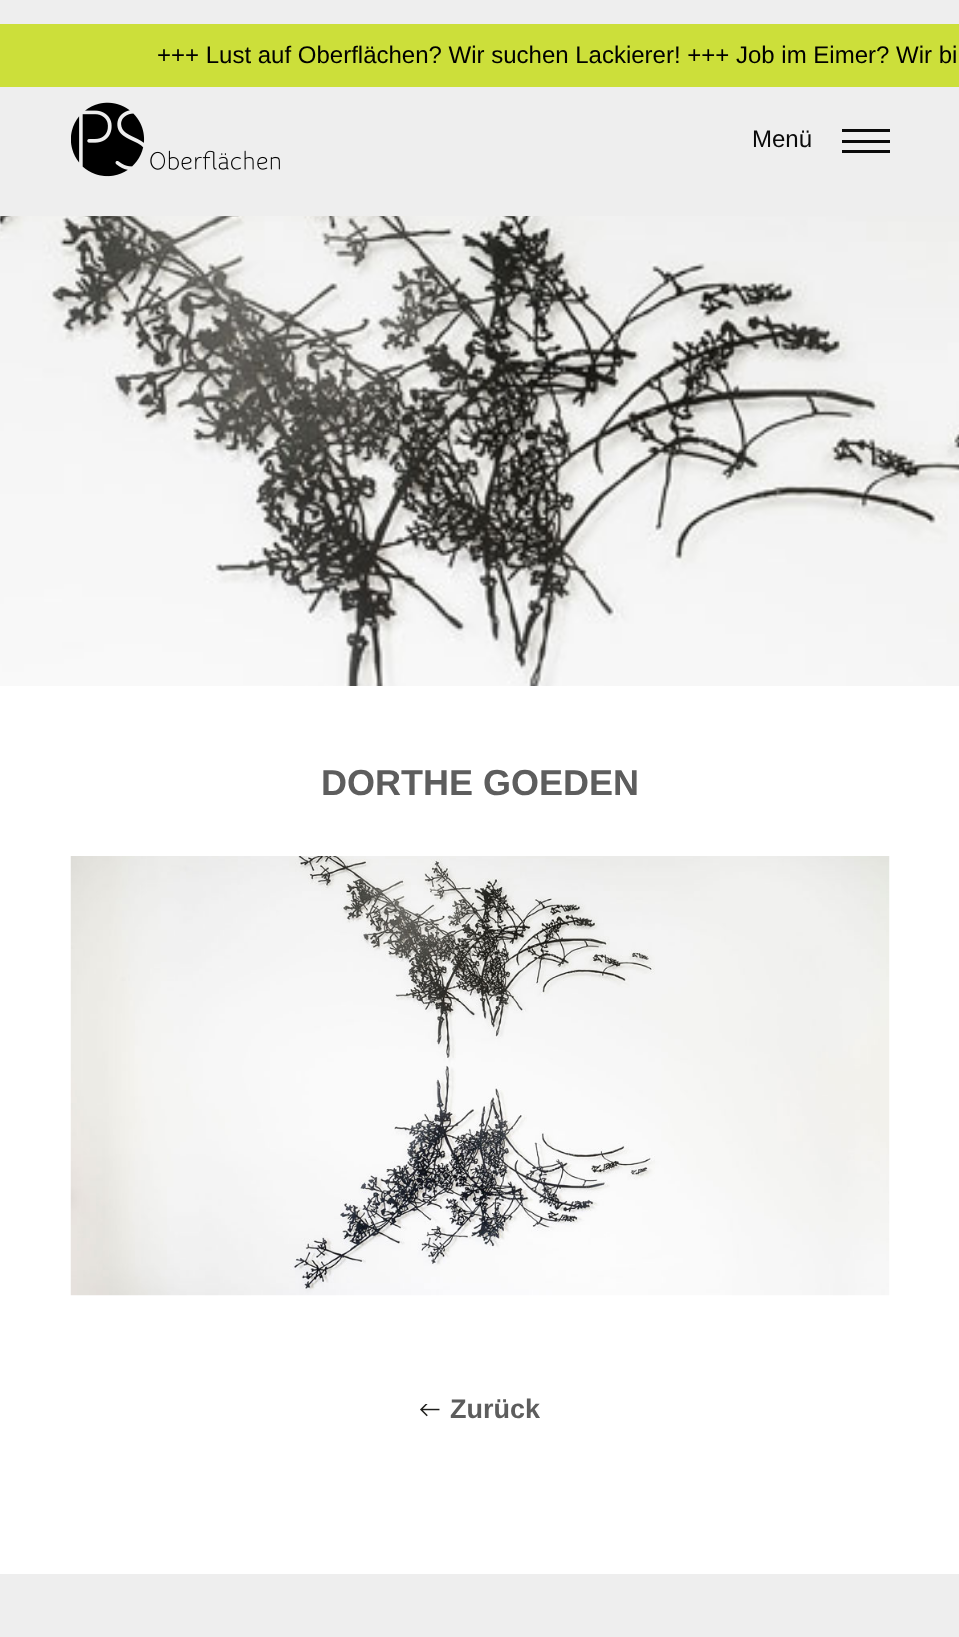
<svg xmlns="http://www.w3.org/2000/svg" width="959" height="1637">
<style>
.a{font:24px Liberation Sans;fill:#000}
.b{font:24px Liberation Sans;fill:#0a0a0a}
.c{font:bold 36px Liberation Sans;fill:#5d5d5d}
.d{font:bold 27px Liberation Sans;fill:#5d5d5d}
</style>
<rect width="100%" height="100%" fill="#fff"/>
<path fill="#eee" d="M0 0h959v216H0z"/>
<path fill="#ccdf3a" d="M0 24h959v63H0z"/>
<image href="1.png" x="71" y="102" width="209" height="75"/>
<path fill="#0a0a0a" d="M842 129h48v3H842z"/>
<path fill="#0a0a0a" d="M842 140h48v3H842z"/>
<path fill="#0a0a0a" d="M842 150h48v3H842z"/>
<image href="2.png" x="0" y="216" width="959" height="470"/>
<image href="3.png" x="70" y="856" width="820" height="440"/>
<image href="4.png" x="420" y="1404" width="20" height="13"/>
<path fill="#eee" d="M0 1574h959v63H0z"/>
<text class="a" x="157" y="63">+++ Lust auf Oberflächen? Wir suchen Lackierer! +++ Job im Eimer? Wir bi</text>
<text class="b" x="752" y="147">Menü</text>
<text class="c" x="321" y="795">DORTHE GOEDEN</text>
<text class="d" x="450" y="1418">Zurück</text>
</svg>
